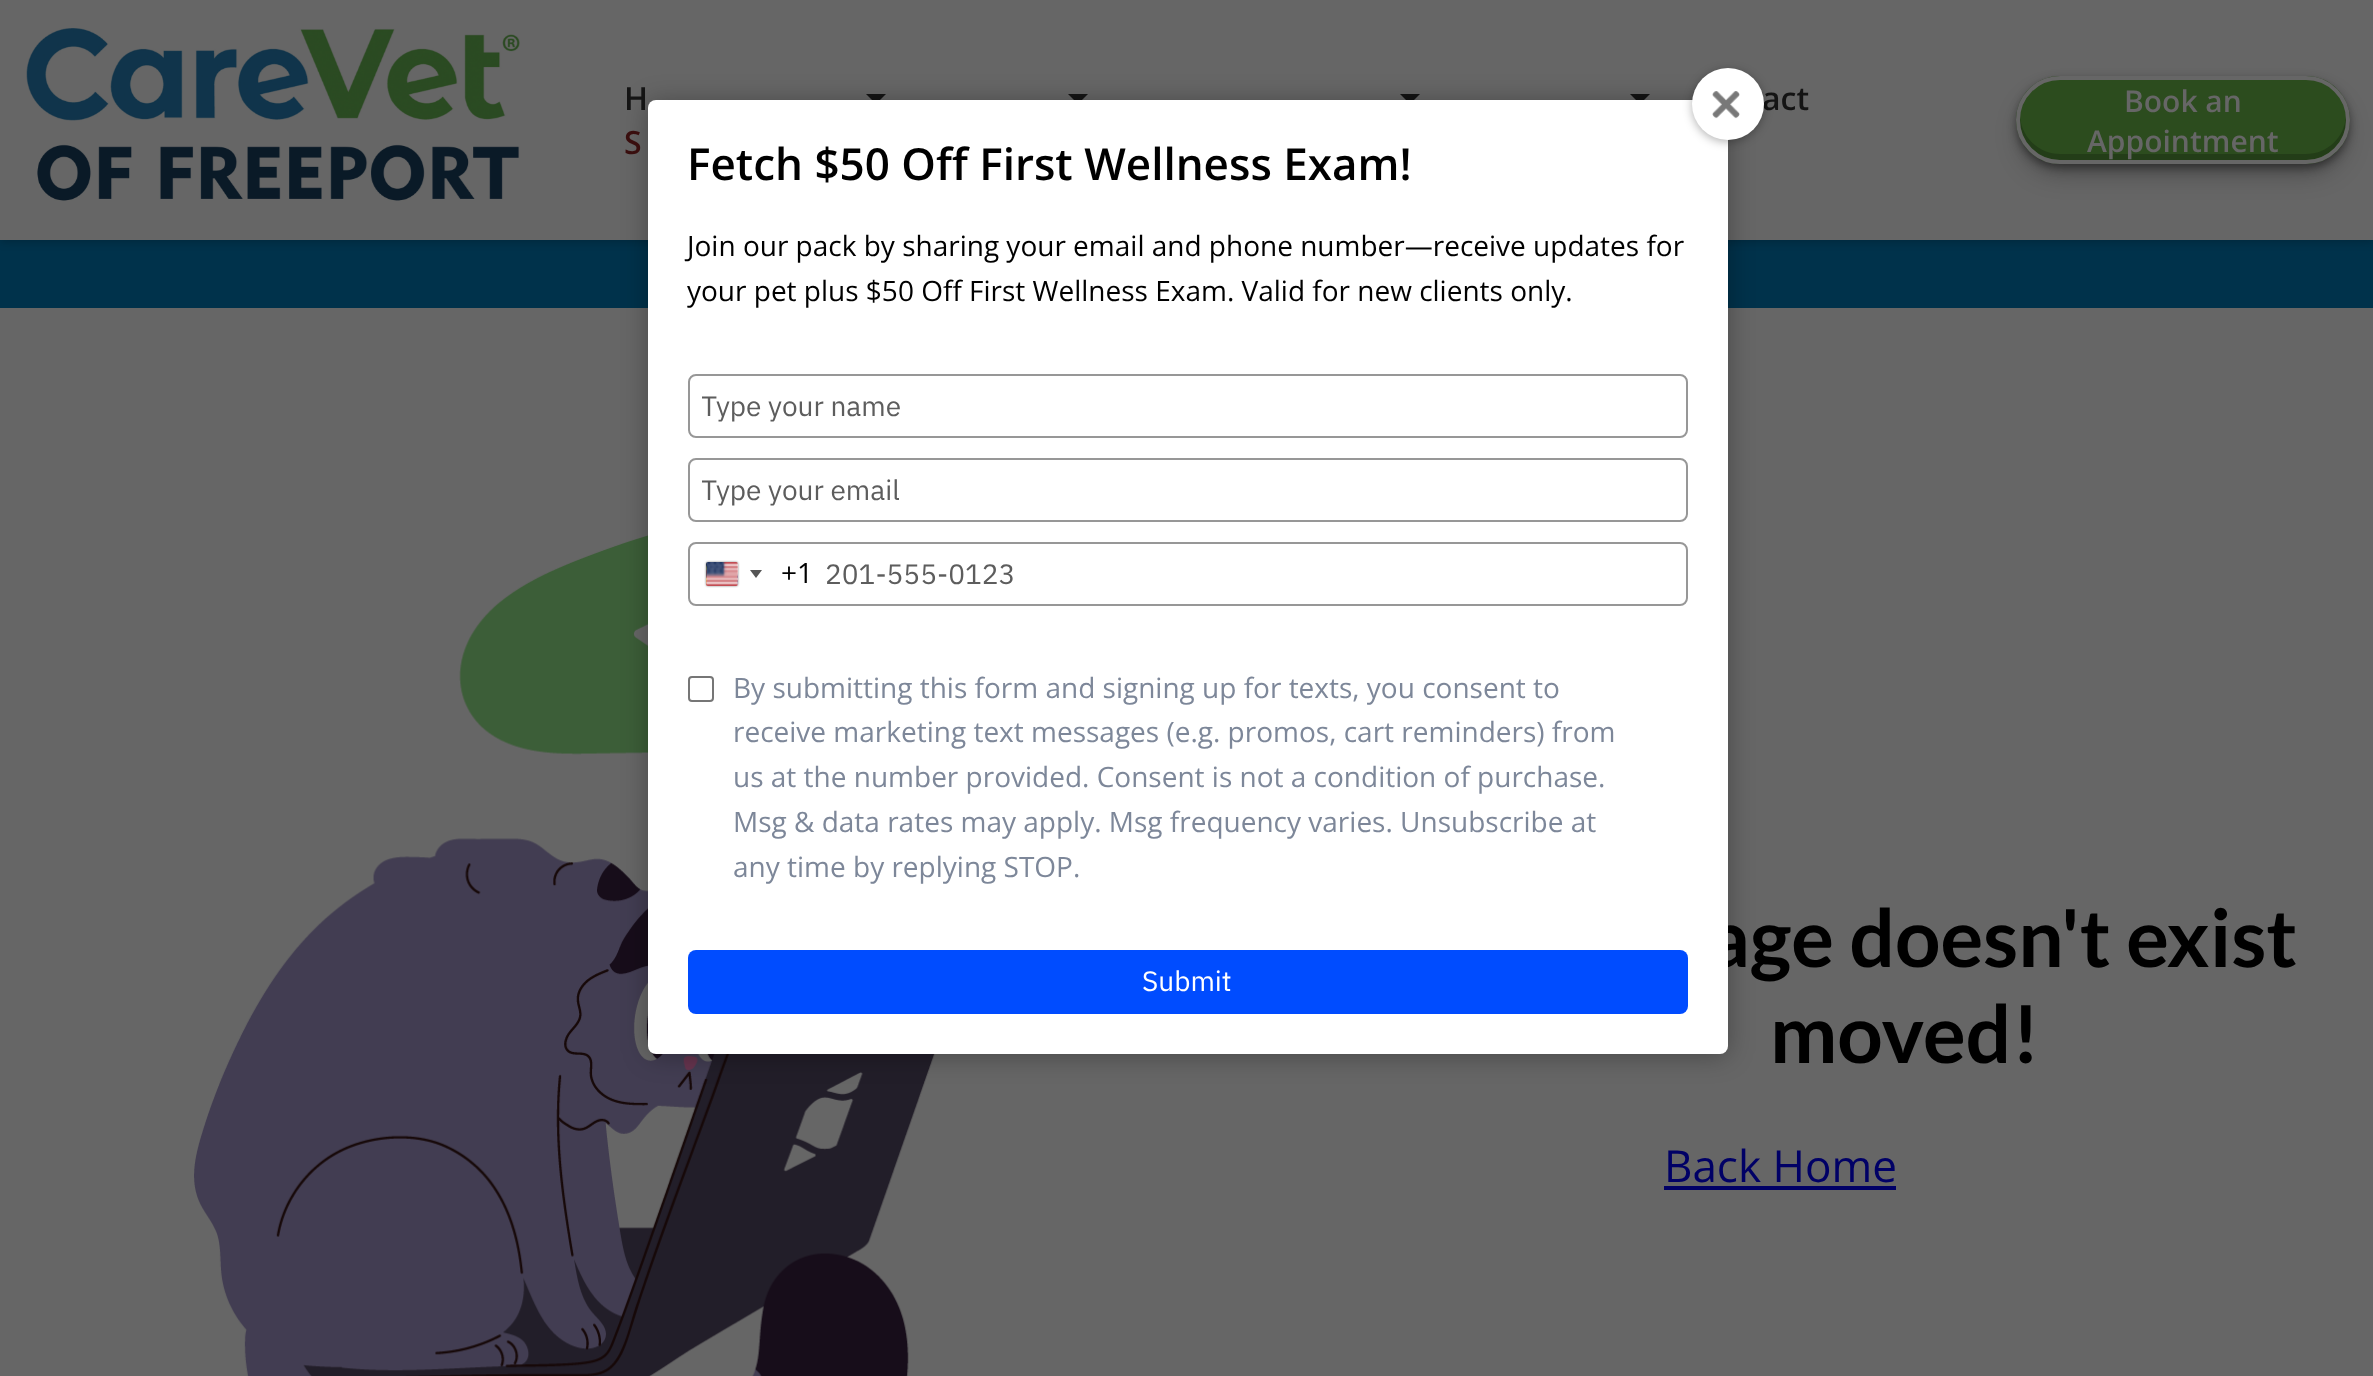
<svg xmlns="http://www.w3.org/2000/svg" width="2373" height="1376">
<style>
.a{font:600 32px Open Sans;fill:#141414}
.b{font:600 32px Open Sans;fill:#390e0e}
.c{font:600 30px Open Sans;fill:#666}
.d{font:bold 80px Lato;fill:#000}
.e{font:28px Open Sans;fill:#000}
.f{font:28px Open Sans;fill:#7d8799}
.g{font:28px IBM Plex Sans;fill:#5d5d5d}
.h{font:28px IBM Plex Sans;fill:#fff}
.i{font:600 44px Open Sans;fill:#000}
.j{font:44px Open Sans;fill:#006}
</style>
<defs>
<clipPath id="clip1"><path d="M702 472h972v36H702z"/></clipPath>
<clipPath id="clip2"><path d="M702 388h972v36H702z"/></clipPath>
</defs>
<rect width="100%" height="100%" fill="#666"/>
<path fill="#00324b" d="M0 240h2373v68H0z"/>
<path fill="#00000033" filter="blur(4px)" d="M0 2h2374v240H0z"/>
<path fill="#666" d="M0 0h2373v240H0z"/>
<image href="1.png" x="26" y="28" width="494" height="173"/>
<path fill="#141414" d="M866 94h20l-10 10z"/>
<path fill="#141414" d="M1068 94h20l-10 10z"/>
<path fill="#141414" d="M1400 94h20l-10 10z"/>
<path fill="#141414" d="M1630 94h20l-10 10z"/>
<rect fill="#0000004d" filter="blur(13px)" x="2022" y="96" width="322" height="76" rx="38"/>
<rect fill="#00000066" filter="blur(4px)" x="2016" y="80" width="334" height="88" rx="44"/>
<rect fill="#2c4c1e" x="2016" y="76" width="334" height="88" rx="44"/>
<path fill="#233d18" d="M2020 117v3c0 22 18 40 40 40h246c22 0 40-18 40-40v-3c-2 21-19 37-40 37h-246c-21 0-38-16-40-37z"/>
<rect fill="none" stroke="#666" stroke-width="4" x="2018" y="78" width="330" height="84" rx="42"/>
<image href="4.png" x="194" y="535" width="741" height="841"/>
<rect fill="#0000004d" filter="blur(13px)" x="648" y="102" width="1080" height="954" rx="8"/>
<path fill="#006" d="M1664 1186h232v4H1664z"/>
<text class="a" x="624" y="110">H</text>
<text class="a" x="1762" y="110">act</text>
<text class="b" x="624" y="154">S</text>
<text class="c" x="2124" y="112">Book an</text>
<text class="c" x="2087" y="152">Appointment</text>
<text class="d" x="1708" y="967">age doesn't exist</text>
<rect fill="#fff" x="648" y="100" width="1080" height="954" rx="8"/>
<rect fill="none" stroke="#979797" stroke-width="2" x="689" y="543" width="998" height="62" rx="7"/>
<text class="e" x="781" y="583">+1</text>
<path fill="#555" d="M750 570h12l-6 8z"/>
<rect fill="#888" filter="blur(1px)" x="706" y="562" width="32" height="24" rx="2"/>
<image href="3.png" x="706" y="562" width="32" height="24"/>
<text class="f" x="733" y="877">any time by replying STOP.</text>
<text class="f" x="733" y="832">Msg &amp; data rates may apply. Msg frequency varies. Unsubscribe at</text>
<text class="f" x="733" y="787">us at the number provided. Consent is not a condition of purchase.</text>
<text class="f" x="733" y="742">receive marketing text messages (e.g. promos, cart reminders) from</text>
<text class="f" x="733" y="698">By submitting this form and signing up for texts, you consent to</text>
<rect fill="none" stroke="#767676" stroke-width="2" x="689" y="677" width="24" height="24" rx="3"/>
<text class="g" x="825" y="584">201-555-0123</text>
<rect fill="none" stroke="#979797" stroke-width="2" x="689" y="459" width="998" height="62" rx="7"/>
<g clip-path="url(#clip1)">
<text class="g" x="701" y="500">Type your email</text>
</g>
<rect fill="none" stroke="#979797" stroke-width="2" x="689" y="375" width="998" height="62" rx="7"/>
<g clip-path="url(#clip2)">
<text class="g" x="701" y="416">Type your name</text>
</g>
<rect fill="#0000004d" filter="blur(5px)" x="1692" y="70" width="72" height="72" rx="36"/>
<circle fill="#fff" cx="1728" cy="104" r="36"/>
<image href="2.png" x="1712" y="91" width="28" height="28"/>
<rect fill="#004cff" x="688" y="950" width="1000" height="64" rx="8"/>
<text class="h" x="1142" y="991">Submit</text>
<text class="e" x="687" y="301">your pet plus $50 Off First Wellness Exam. Valid for new clients only.</text>
<text class="e" x="687" y="256">Join our pack by sharing your email and phone number—receive updates for</text>
<text class="i" x="687" y="180">Fetch $50 Off First Wellness Exam!</text>
<text class="d" x="1770" y="1063">moved!</text>
<text class="j" x="1664" y="1182">Back Home</text>
</svg>
